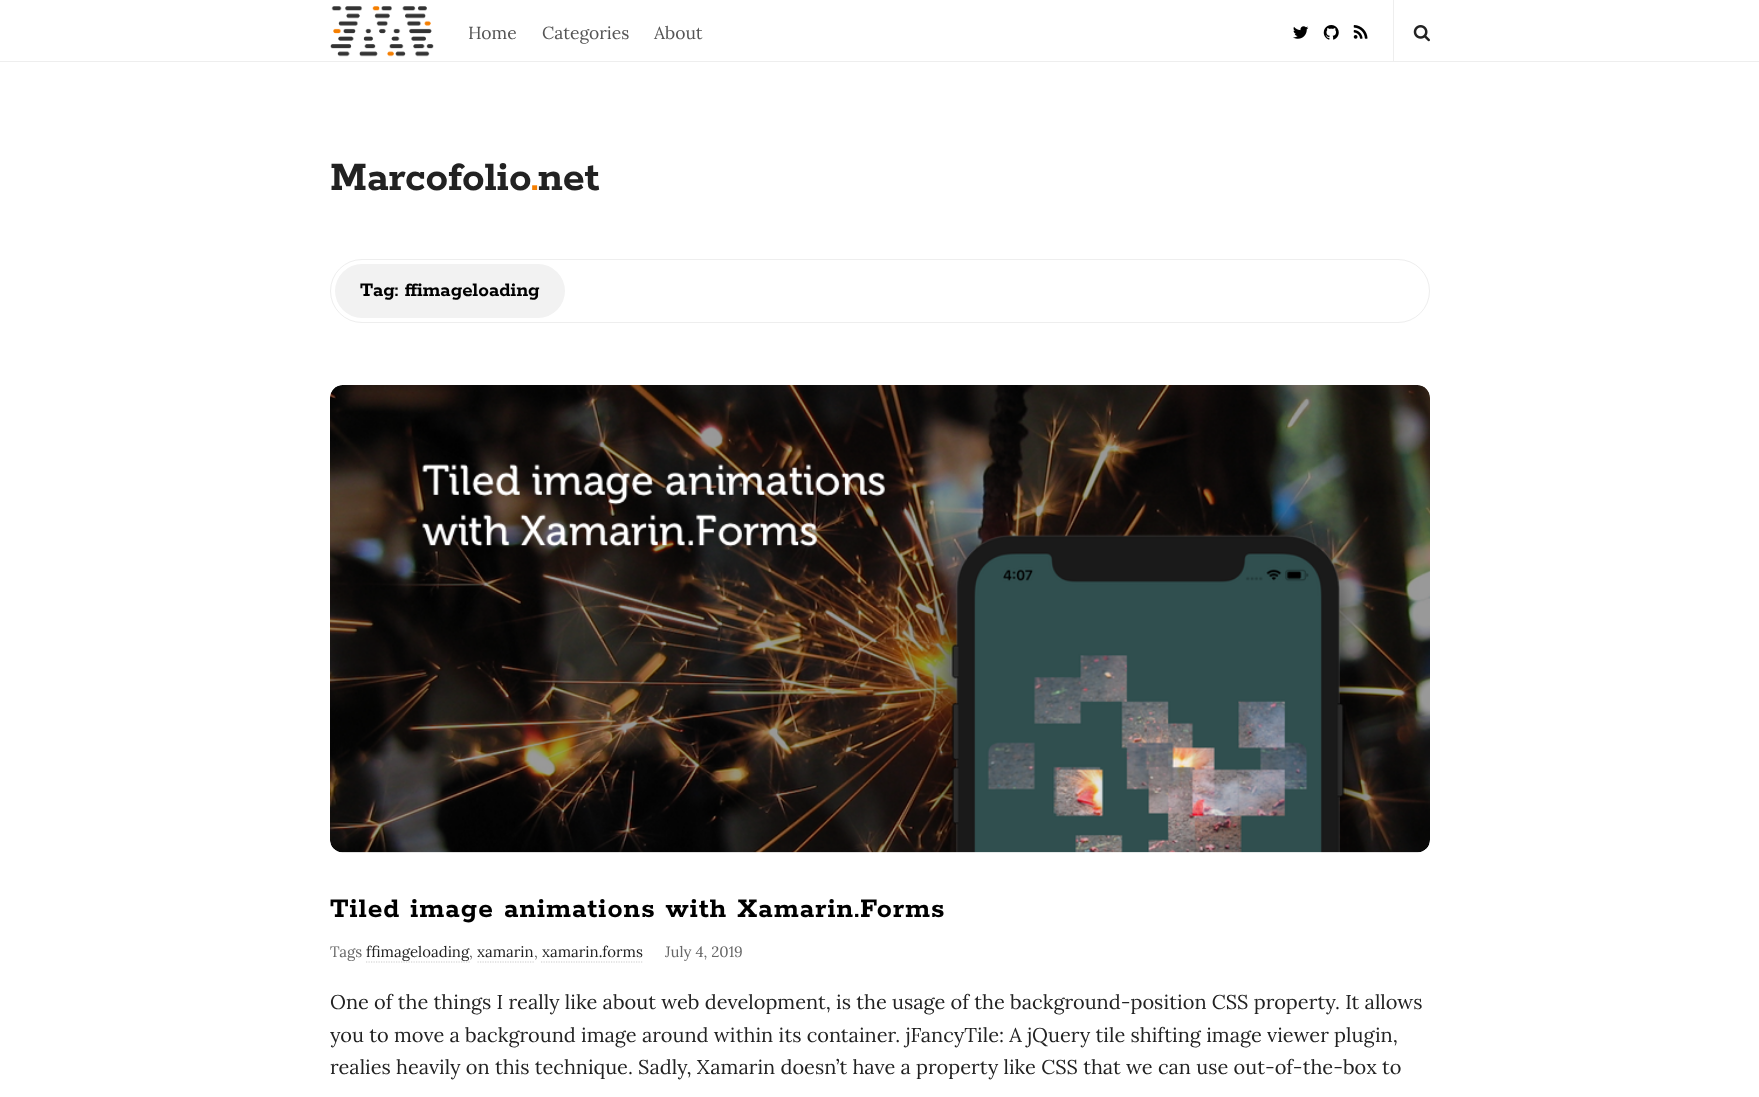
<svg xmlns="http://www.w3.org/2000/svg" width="1759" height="1097">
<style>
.a{font:17.5px Lora;fill:#555}
.b{font:bold 45px Rokkitt;fill:#222}
.c{font:bold 45px Rokkitt;fill:#f47e00}
.d{font:bold 21.25px Rokkitt;fill:#000}
.e{font:bold 30px Rokkitt;letter-spacing:1px;fill:#000}
.f{font:15px Lora;fill:#666}
.g{font:15px Lora;fill:#222}
.h{font:20px Lora;fill:#222}
</style>
<rect width="100%" height="100%" fill="#fff"/>
<path fill="#eee" d="M0 61h1759v1H0z"/>
<image href="1.png" x="330" y="6" width="104" height="51"/>
<image href="2.png" x="1293" y="26" width="16" height="13"/>
<image href="3.png" x="1323" y="25" width="16" height="15"/>
<image href="4.png" x="1353" y="25" width="15" height="14"/>
<path fill="#eee" d="M1393 0h1v61H1393z"/>
<image href="5.png" x="1413" y="25" width="17" height="17"/>
<rect fill="none" stroke="#eee" x="330.5" y="259.5" width="1099" height="63" rx="31.5"/>
<rect fill="#f2f2f2" x="335" y="264" width="230" height="54" rx="27"/>
<image href="6.png" x="330" y="385" width="1100" height="468"/>
<path fill="none" stroke="#ccc" stroke-width="1.2" stroke-dasharray="1.25 1.25" d="M366 962h104"/>
<path fill="none" stroke="#ccc" stroke-width="1.2" stroke-dasharray="1.25 1.25" d="M477.5 962h56.5"/>
<path fill="none" stroke="#ccc" stroke-width="1.2" stroke-dasharray="1.25 1.25" d="M541 962h101.5"/>
<text class="a" x="468" y="39">Home</text>
<text class="a" x="542" y="39">Categories</text>
<text class="a" x="654" y="39">About</text>
<text class="b" x="330" y="190">Marcofolio</text>
<text class="c" x="531" y="190">.</text>
<text class="b" x="538" y="190">net</text>
<text class="d" x="360" y="296">Tag: ffimageloading</text>
<text class="e" x="330" y="917">Tiled image animations with Xamarin.Forms</text>
<text class="f" x="330" y="957">Tags</text>
<text class="g" x="366" y="957">ffimageloading</text>
<text class="f" x="469" y="957">,</text>
<text class="g" x="477" y="957">xamarin</text>
<text class="f" x="534" y="957">,</text>
<text class="g" x="542" y="957">xamarin.forms</text>
<text class="f" x="665" y="957">July 4, 2019</text>
<text class="h" x="330" y="1009">One of the things I really like about web development, is the usage of the background-position CSS property. It allows</text>
<text class="h" x="330" y="1042">you to move a background image around within its container. jFancyTile: A jQuery tile shifting image viewer plugin,</text>
<text class="h" x="330" y="1074">realies heavily on this technique. Sadly, Xamarin doesn’t have a property like CSS that we can use out-of-the-box to</text>
</svg>
